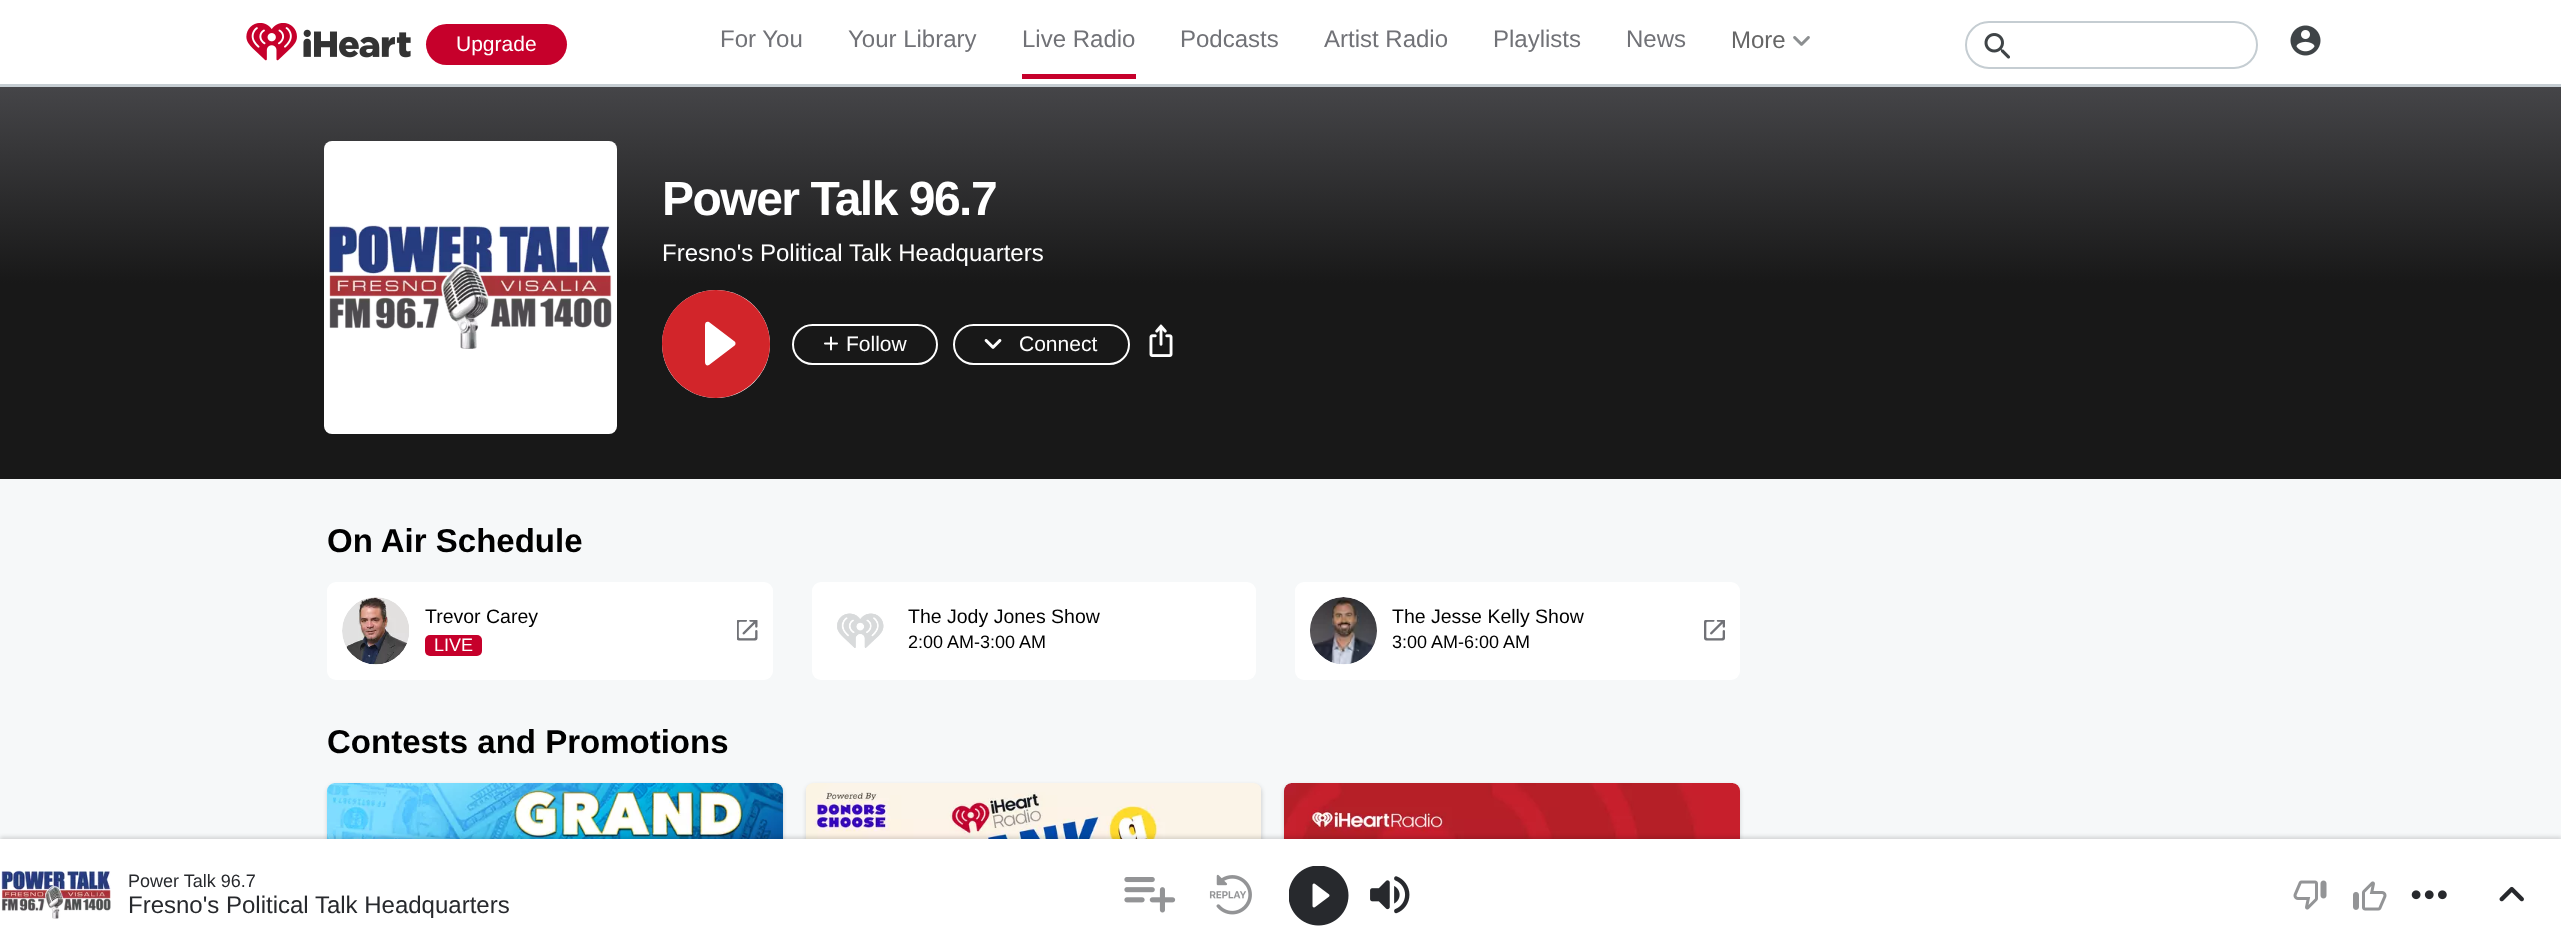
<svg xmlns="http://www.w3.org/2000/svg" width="2561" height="950">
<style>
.a{font:21px Liberation Sans;fill:#fff}
.b{font:24px Liberation Sans;fill:#717277}
.c{font:24px Liberation Sans;fill:#666}
.d{font:bold 48px Liberation Sans;letter-spacing:-1.5px;fill:#fff}
.e{font:24px Liberation Sans;fill:#fff}
.f{font:bold 33px Liberation Sans;fill:#000}
.g{font:19.5px Liberation Sans;fill:#000}
.h{font:18px Liberation Sans;fill:#fff}
.i{font:18px Liberation Sans;fill:#000}
.j{font:18px Liberation Sans;fill:#27292d}
.k{font:24px Liberation Sans;fill:#27292d}
</style>
<defs>
<linearGradient id="g1" gradientUnits="userSpaceOnUse" x1="1281" y1="87" x2="1281" y2="479"><stop offset="0" stop-color="#454548"/><stop offset="0.5" stop-color="#181818"/></linearGradient>
</defs>
<rect width="100%" height="100%" fill="#fff"/>
<path fill="#c5cdd2" d="M0 84h2561v3H0z"/>
<image href="1.png" x="246" y="23" width="165" height="38"/>
<rect fill="#c6002b" x="426" y="24" width="141" height="41" rx="20.5"/>
<path fill="#c6002b" d="M1022 74h114v5H1022z"/>
<image href="2.png" x="1793" y="36" width="17" height="10"/>
<rect fill="none" stroke="#c5cdd2" stroke-width="2" x="1966" y="22" width="291" height="46" rx="23"/>
<image href="3.png" x="1984" y="33" width="26" height="26"/>
<image href="4.png" x="2290" y="25" width="31" height="31"/>
<path fill="url(#g1)" d="M0 87h2561v392H0z"/>
<rect fill="#fff" x="324" y="141" width="293" height="293" rx="8"/>
<image href="5.png" x="329" y="225" width="283" height="124"/>
<circle fill="#fff" cx="716" cy="344" r="54"/>
<path fill="#d2252a" d="M716 290c-30 0-54 24-54 54c0 29 24 54 54 54c29 0 54-25 54-54c0-30-25-54-54-54zm-11 72v-37c0-3 2-4 4-3l25 19c2 1 2 4 0 5l-25 19c-2 1-4 0-4-3z"/>
<rect fill="none" stroke="#fff" stroke-width="2" x="793" y="325" width="144" height="39" rx="19.5"/>
<image href="6.png" x="824" y="336" width="14" height="15"/>
<rect fill="none" stroke="#fff" stroke-width="2" x="954" y="325" width="175" height="39" rx="19.5"/>
<image href="7.png" x="984" y="339" width="18" height="10"/>
<image href="8.png" x="1149" y="324" width="24" height="33"/>
<path fill="#f6f8f9" d="M0 479h2561v360H0z"/>
<rect fill="#fff" x="327" y="582" width="446" height="98" rx="9"/>
<image href="9.png" x="342" y="597" width="67" height="68"/>
<rect fill="#c6002b" x="425" y="635" width="57" height="21" rx="5"/>
<image href="10.png" x="737" y="620" width="21" height="21"/>
<rect fill="#fff" x="812" y="582" width="444" height="98" rx="9"/>
<image href="11.png" x="837" y="613" width="47" height="35"/>
<rect fill="#fff" x="1295" y="582" width="445" height="98" rx="9"/>
<image href="12.png" x="1310" y="597" width="67" height="68"/>
<image href="13.png" x="1704" y="620" width="21" height="21"/>
<rect fill="#00000026" filter="blur(2px)" x="327" y="785" width="456" height="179" rx="8"/>
<image href="14.png" x="327" y="783" width="456" height="56"/>
<rect fill="#00000026" filter="blur(2px)" x="806" y="785" width="456" height="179" rx="8"/>
<image href="15.png" x="805" y="783" width="456" height="56"/>
<rect fill="#00000026" filter="blur(2px)" x="1284" y="785" width="456" height="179" rx="8"/>
<image href="16.png" x="1284" y="783" width="456" height="56"/>
<path fill="#00000026" filter="blur(2px)" d="M0 837h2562v113H0z"/>
<path fill="#fff" d="M0 839h2561v111H0z"/>
<image href="17.png" x="1" y="870" width="110" height="49"/>
<image href="18.png" x="1124" y="877" width="52" height="36"/>
<image href="19.png" x="1209" y="874" width="43" height="41"/>
<image href="20.png" x="1289" y="866" width="60" height="60"/>
<image href="21.png" x="1370" y="876" width="40" height="38"/>
<image href="22.png" x="2293" y="880" width="34" height="30"/>
<image href="23.png" x="2353" y="881" width="34" height="30"/>
<image href="24.png" x="2411" y="890" width="36" height="10"/>
<image href="25.png" x="2499" y="886" width="25" height="16"/>
<text class="a" x="456" y="51">Upgrade</text>
<text class="b" x="720" y="47">For You</text>
<text class="b" x="848" y="47">Your Library</text>
<text class="b" x="1022" y="47">Live Radio</text>
<text class="b" x="1180" y="47">Podcasts</text>
<text class="b" x="1324" y="47">Artist Radio</text>
<text class="b" x="1493" y="47">Playlists</text>
<text class="b" x="1626" y="47">News</text>
<text class="c" x="1731" y="48">More</text>
<text class="d" x="662" y="215">Power Talk 96.7</text>
<text class="e" x="662" y="261">Fresno's Political Talk Headquarters</text>
<text class="a" x="846" y="351">Follow</text>
<text class="a" x="1019" y="351">Connect</text>
<text class="f" x="327" y="552">On Air Schedule</text>
<text class="g" x="425" y="623">Trevor Carey</text>
<text class="h" x="434" y="651">LIVE</text>
<text class="g" x="908" y="623">The Jody Jones Show</text>
<text class="i" x="908" y="648">2:00 AM-3:00 AM</text>
<text class="g" x="1392" y="623">The Jesse Kelly Show</text>
<text class="i" x="1392" y="648">3:00 AM-6:00 AM</text>
<text class="f" x="327" y="753">Contests and Promotions</text>
<text class="j" x="128" y="887">Power Talk 96.7</text>
<text class="k" x="128" y="913">Fresno's Political Talk Headquarters</text>
</svg>
